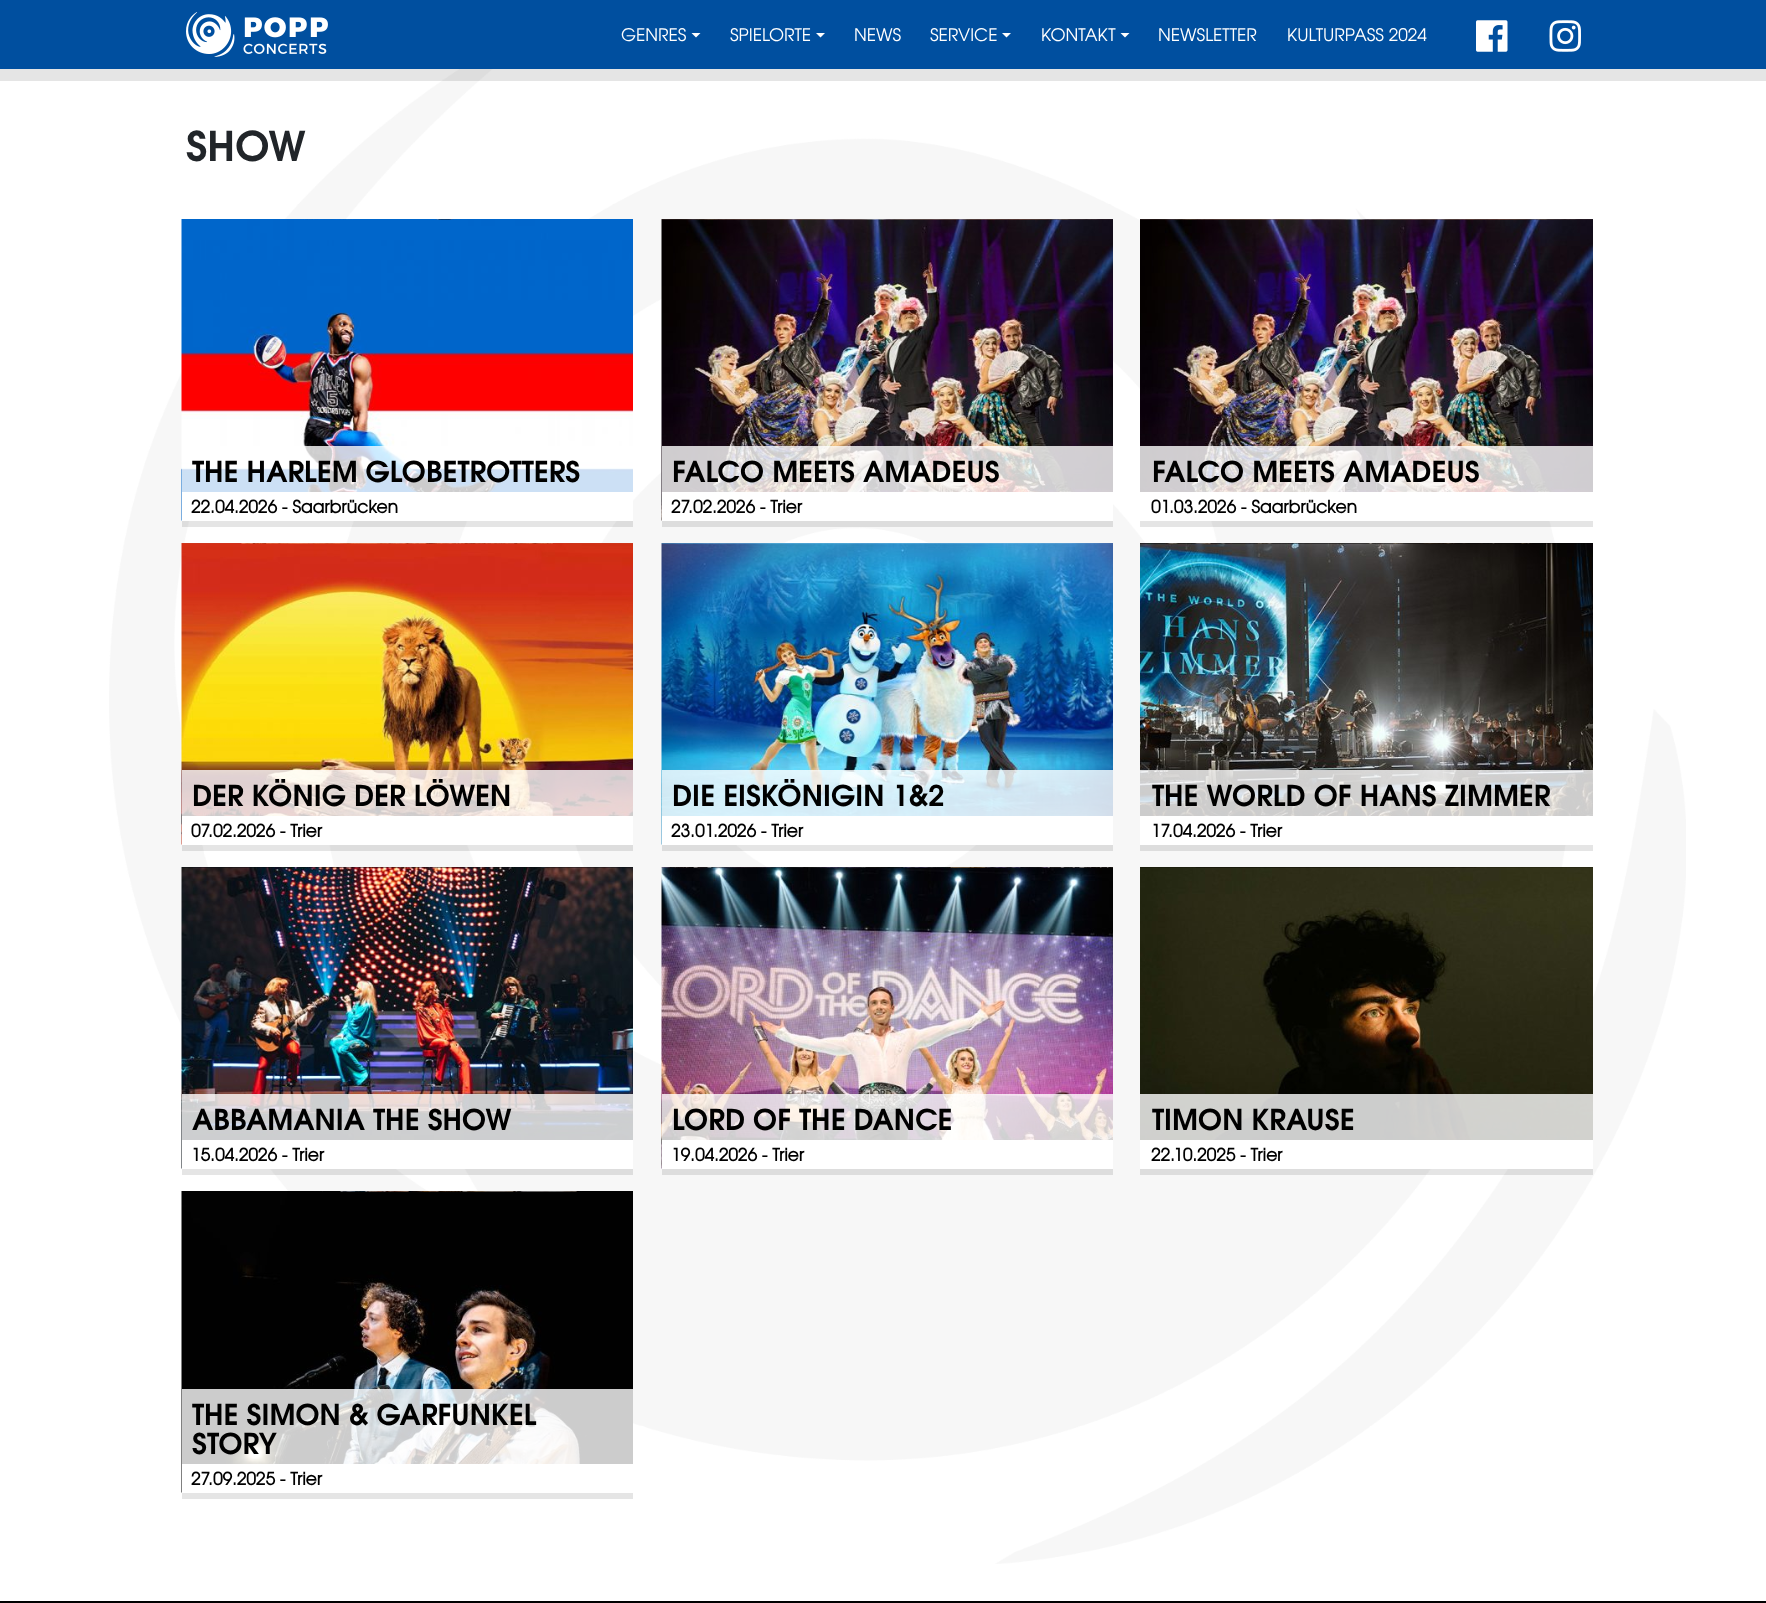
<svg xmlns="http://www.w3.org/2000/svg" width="1766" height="1603">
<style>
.a{font:17.25px TeX Gyre Adventor;fill:#fff}
.b{font:bold 41px TeX Gyre Adventor;fill:#212529}
.c{font:bold 28.75px TeX Gyre Adventor;fill:#000}
.d{font:bold 17.25px 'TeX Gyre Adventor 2';fill:#000}
</style>
<rect width="100%" height="100%" fill="#fff"/>
<image href="1.png" x="109" y="69" width="1577" height="1495"/>
<path fill="#0000001a" d="M0 69h1766v12H0z"/>
<path fill="#004f9f" d="M0 0h1766v69H0z"/>
<image href="2.png" x="186" y="12" width="142" height="45"/>
<path fill="#fff" d="M691.5 33h9l-4.5 4.5z"/>
<path fill="#fff" d="M816 33h9l-4.5 4.5z"/>
<path fill="#fff" d="M1002 33h9l-4.5 4.5z"/>
<path fill="#fff" d="M1120.5 33h9l-4.5 4.5z"/>
<image href="3.png" x="1476" y="20" width="32" height="32"/>
<image href="4.png" x="1549" y="20" width="32" height="32"/>
<image href="5.png" x="181" y="219" width="452" height="302"/>
<path fill="#0000001a" d="M182 521h451v6H182z"/>
<path fill="#ffffffcc" d="M182 446h451v46H182z"/>
<path fill="#fff" d="M182 492h451v29H182z"/>
<image href="6.png" x="661" y="219" width="452" height="302"/>
<path fill="#0000001a" d="M662 521h451v6H662z"/>
<path fill="#ffffffcc" d="M662 446h451v46H662z"/>
<path fill="#fff" d="M662 492h451v29H662z"/>
<image href="7.png" x="1140" y="219" width="453" height="273"/>
<path fill="#0000001a" d="M1140 521h453v6H1140z"/>
<path fill="#ffffffcc" d="M1140 446h453v46H1140z"/>
<path fill="#fff" d="M1202 492h348v29H1202z"/>
<image href="8.png" x="181" y="543" width="452" height="302"/>
<path fill="#0000001a" d="M182 845h451v6H182z"/>
<path fill="#ffffffcc" d="M182 770h451v46H182z"/>
<path fill="#fff" d="M182 816h451v29H182z"/>
<image href="9.png" x="661" y="543" width="452" height="302"/>
<path fill="#0000001a" d="M662 845h451v6H662z"/>
<path fill="#ffffffcc" d="M662 770h451v46H662z"/>
<path fill="#fff" d="M662 816h451v29H662z"/>
<image href="10.png" x="1140" y="543" width="453" height="273"/>
<path fill="#0000001a" d="M1140 845h453v6H1140z"/>
<path fill="#ffffffcc" d="M1140 770h453v46H1140z"/>
<path fill="#fff" d="M1140 816h430v29H1140z"/>
<image href="11.png" x="181" y="867" width="452" height="302"/>
<path fill="#0000001a" d="M182 1169h451v6H182z"/>
<path fill="#ffffffcc" d="M182 1094h451v46H182z"/>
<path fill="#fff" d="M182 1140h451v29H182z"/>
<image href="12.png" x="661" y="867" width="452" height="302"/>
<path fill="#0000001a" d="M662 1169h451v6H662z"/>
<path fill="#ffffffcc" d="M662 1094h451v46H662z"/>
<path fill="#fff" d="M662 1140h451v29H662z"/>
<image href="13.png" x="1140" y="867" width="453" height="273"/>
<path fill="#0000001a" d="M1140 1169h453v6H1140z"/>
<path fill="#ffffffcc" d="M1140 1094h453v46H1140z"/>
<path fill="#fff" d="M1140 1140h453v29H1140z"/>
<image href="14.png" x="181" y="1191" width="452" height="302"/>
<path fill="#0000001a" d="M182 1493h451v6H182z"/>
<path fill="#ffffffcc" d="M182 1389h451v75H182z"/>
<path fill="#fff" d="M182 1464h451v29H182z"/>
<path fill="#000" d="M0 1601h1766v2H0z"/>
<text class="a" x="621" y="41">GENRES</text>
<text class="a" x="730" y="41">SPIELORTE</text>
<text class="a" x="854" y="41">NEWS</text>
<text class="a" x="930" y="41">SERVICE</text>
<text class="a" x="1041" y="41">KONTAKT</text>
<text class="a" x="1158" y="41">NEWSLETTER</text>
<text class="a" x="1287" y="41">KULTURPASS 2024</text>
<text class="b" x="186" y="161">SHOW</text>
<text class="c" x="192" y="482">THE HARLEM GLOBETROTTERS</text>
<text class="d" x="191" y="513">22.04.2026 - Saarbrücken</text>
<text class="c" x="672" y="482">FALCO MEETS AMADEUS</text>
<text class="d" x="671" y="513">27.02.2026 - Trier</text>
<text class="c" x="1152" y="482">FALCO MEETS AMADEUS</text>
<text class="d" x="1151" y="513">01.03.2026 - Saarbrücken</text>
<text class="c" x="192" y="806">DER KÖNIG DER LÖWEN</text>
<text class="d" x="191" y="837">07.02.2026 - Trier</text>
<text class="c" x="672" y="806">DIE EISKÖNIGIN 1&amp;2</text>
<text class="d" x="671" y="837">23.01.2026 - Trier</text>
<text class="c" x="1152" y="806">THE WORLD OF HANS ZIMMER</text>
<text class="d" x="1151" y="837">17.04.2026 - Trier</text>
<text class="c" x="192" y="1130">ABBAMANIA THE SHOW</text>
<text class="d" x="191" y="1161">15.04.2026 - Trier</text>
<text class="c" x="672" y="1130">LORD OF THE DANCE</text>
<text class="d" x="671" y="1161">19.04.2026 - Trier</text>
<text class="c" x="1152" y="1130">TIMON KRAUSE</text>
<text class="d" x="1151" y="1161">22.10.2025 - Trier</text>
<text class="c" x="192" y="1425">THE SIMON &amp; GARFUNKEL</text>
<text class="c" x="192" y="1454">STORY</text>
<text class="d" x="191" y="1485">27.09.2025 - Trier</text>
</svg>
